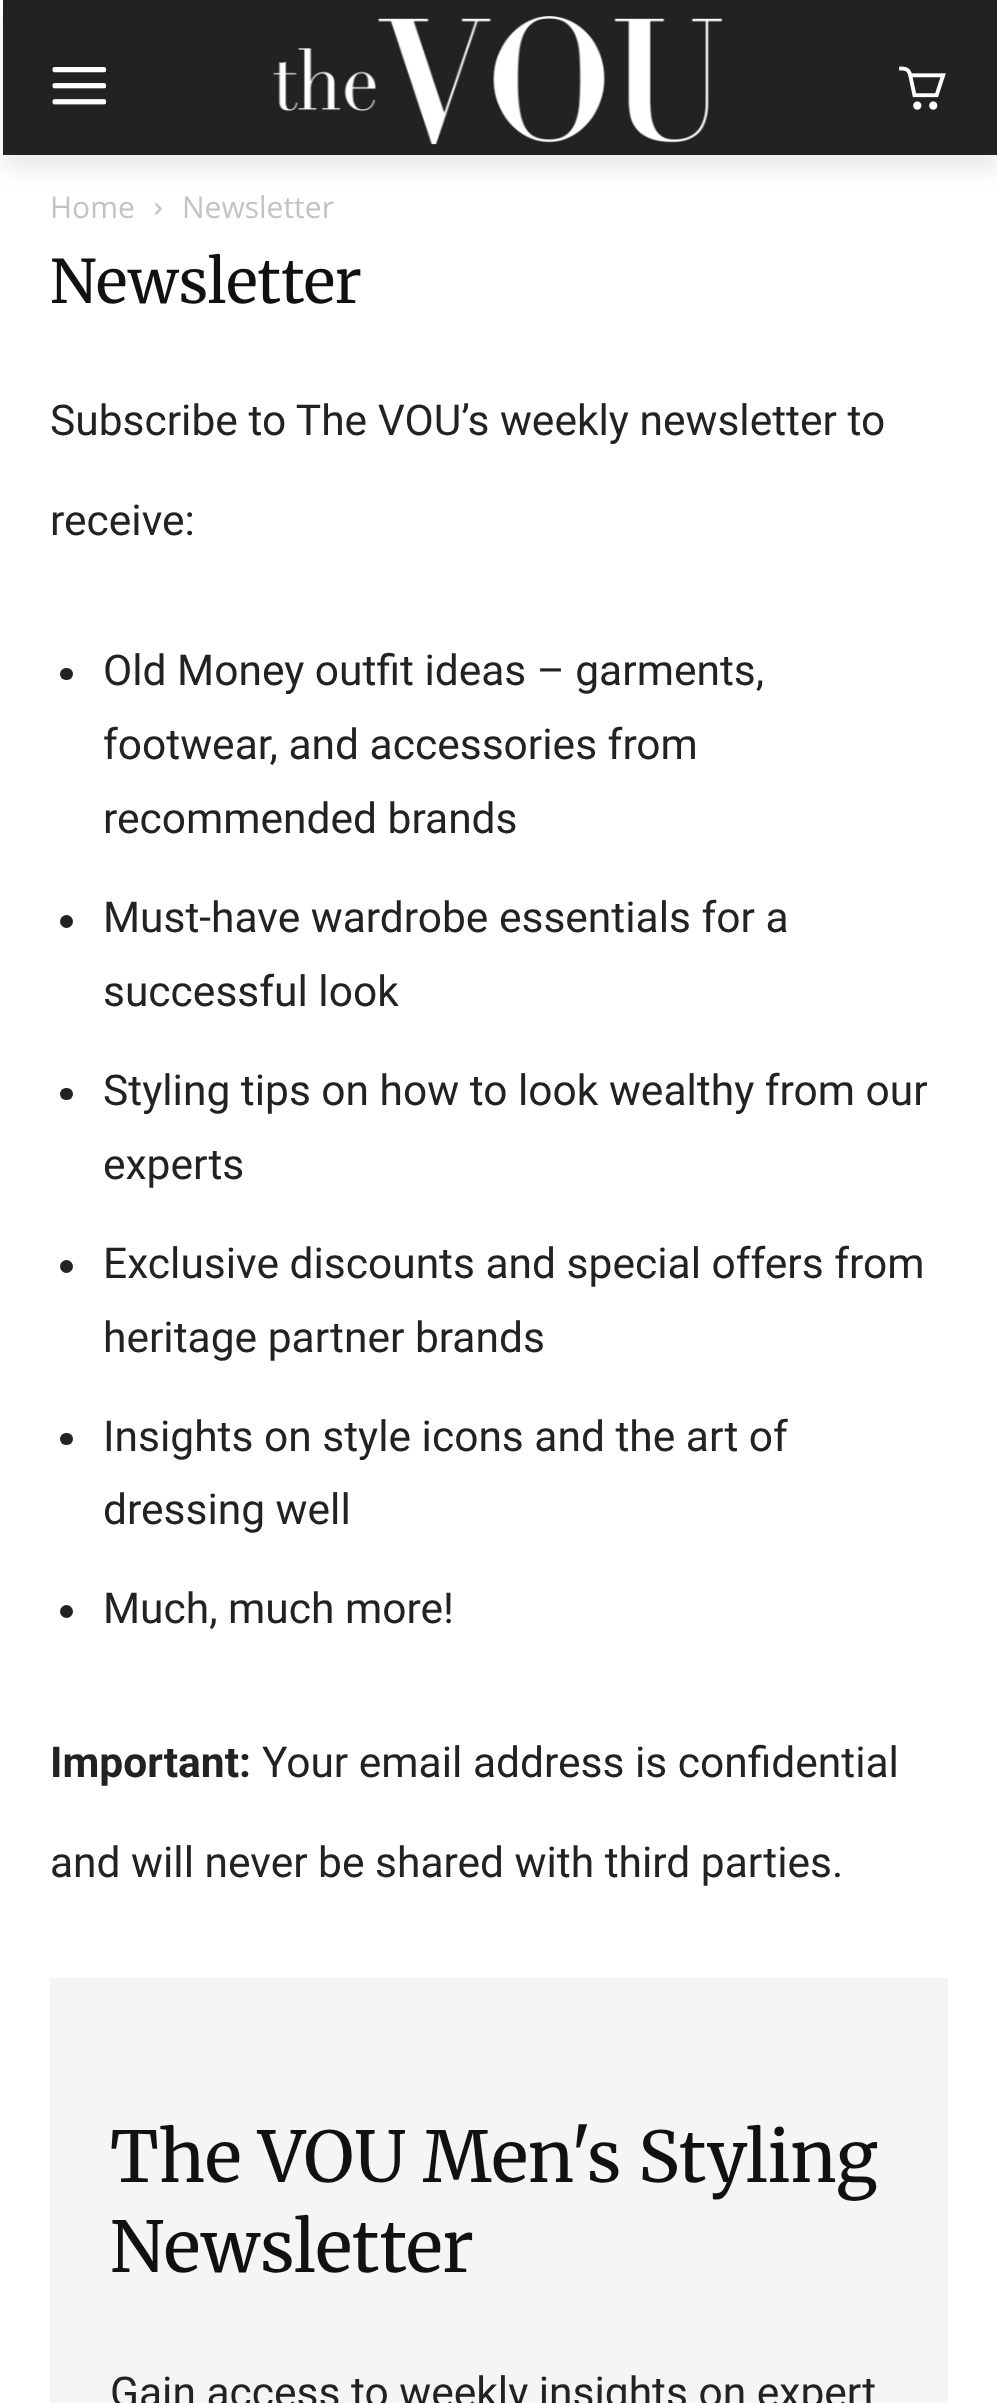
<svg xmlns="http://www.w3.org/2000/svg" width="997" height="2403">
<style>
.a{font:30px Open Sans;fill:#c3c3c3}
.b{font:300 60px Merriweather;fill:#111}
.c{font:42.5px Roboto;fill:#222}
.d{font:bold 42.5px Roboto;fill:#222}
.e{font:300 70px Merriweather;fill:#111}
</style>
<defs>
<clipPath id="clip1"><path d="M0 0h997v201h-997zm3 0h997v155h-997z" clip-rule="evenodd"/></clipPath>
</defs>
<rect width="100%" height="100%" fill="#fff"/>
<path fill="#222" d="M3 0h994v155H3z"/>
<image href="1.png" x="52" y="67" width="55" height="38"/>
<image href="2.png" x="273" y="16" width="450" height="129"/>
<g clip-path="url(#clip1)">
<path fill="#00000014" filter="blur(10px)" d="M3 15h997v155H3z"/>
</g>
<image href="3.png" x="899" y="66" width="47" height="44"/>
<image href="4.png" x="155" y="203" width="7" height="12"/>
<rect fill="#222" x="60" y="668" width="13" height="12" rx="6"/>
<circle fill="#222" cx="66.5" cy="921.5" r="6.5"/>
<rect fill="#222" x="60" y="1088" width="13" height="12" rx="6"/>
<circle fill="#222" cx="66.5" cy="1266.5" r="6.5"/>
<rect fill="#222" x="60" y="1433" width="13" height="12" rx="6"/>
<circle fill="#222" cx="66.5" cy="1611.5" r="6.5"/>
<path fill="#f5f5f5" d="M50 1978h898v425H50z"/>
<text class="a" x="50" y="218">Home</text>
<text class="a" x="182" y="218">Newsletter</text>
<text class="b" x="50" y="303">Newsletter</text>
<text class="c" x="50" y="435">Subscribe to The VOU’s weekly newsletter to</text>
<text class="c" x="50" y="535">receive:</text>
<text class="c" x="103" y="685">Old Money outfit ideas – garments,</text>
<text class="c" x="103" y="759">footwear, and accessories from</text>
<text class="c" x="103" y="833">recommended brands</text>
<text class="c" x="103" y="932">Must-have wardrobe essentials for a</text>
<text class="c" x="103" y="1006">successful look</text>
<text class="c" x="103" y="1105">Styling tips on how to look wealthy from our</text>
<text class="c" x="103" y="1179">experts</text>
<text class="c" x="103" y="1278">Exclusive discounts and special offers from</text>
<text class="c" x="103" y="1352">heritage partner brands</text>
<text class="c" x="103" y="1451">Insights on style icons and the art of</text>
<text class="c" x="103" y="1524">dressing well</text>
<text class="c" x="103" y="1623">Much, much more!</text>
<text class="d" x="50" y="1777">Important:</text>
<text class="c" x="262" y="1777">Your email address is confidential</text>
<text class="c" x="50" y="1877">and will never be shared with third parties.</text>
<text class="e" x="110" y="2182">The VOU Men's Styling</text>
<text class="e" x="110" y="2272">Newsletter</text>
<text class="c" x="110" y="2407">Gain access to weekly insights on expert</text>
</svg>
